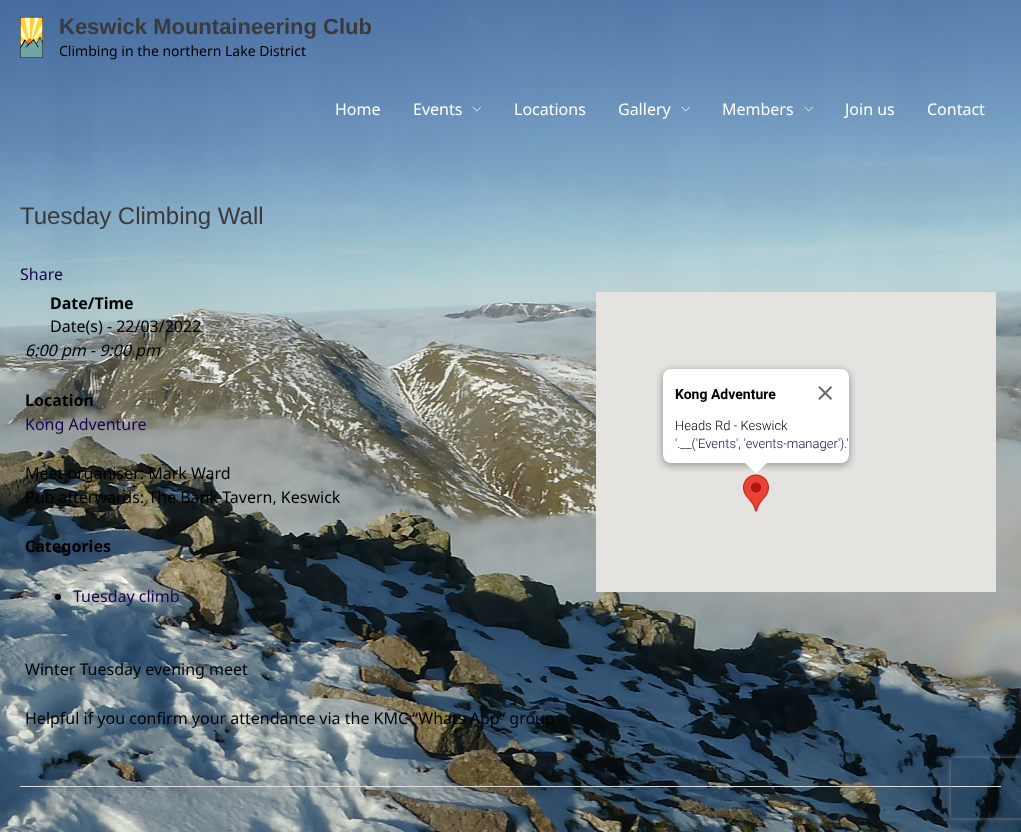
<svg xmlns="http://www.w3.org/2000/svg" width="1021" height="832">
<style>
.a{font:bold 22px Liberation Sans;fill:#3a3a3a}
.b{font:14px Noto Sans;fill:#000}
.c{font:16px Noto Sans;fill:#fff}
.d{font:24px Liberation Sans;fill:#3a3a3a}
.e{font:16px Noto Sans;fill:#1c0051}
.f{font:bold 16px Noto Sans;fill:#000}
.g{font:16px Noto Sans;fill:#000}
.h{font:italic 16px Noto Sans;fill:#000}
.i{font:bold 14px Roboto;fill:#000}
.j{font:300 13px Roboto;fill:#000}
.k{font:300 13px Roboto;fill:#1c0051}
</style>
<defs>
<clipPath id="clip1"><path d="M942 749h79v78h-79zm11 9h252c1 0 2 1 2 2v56c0 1-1 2-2 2h-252c-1 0-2-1-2-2v-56c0-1 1-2 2-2z" clip-rule="evenodd"/></clipPath>
</defs>
<rect width="100%" height="100%" fill="#fff"/>
<image href="1.png" x="0" y="0" width="1021" height="832"/>
<image href="2.png" x="20" y="17" width="23" height="41"/>
<image href="3.png" x="472" y="106" width="9" height="6"/>
<image href="4.png" x="681" y="106" width="9" height="6"/>
<image href="5.png" x="804" y="106" width="9" height="6"/>
<path fill="#e5e3df" d="M596 292h400v300H596z"/>
<image href="7.png" x="743" y="474" width="26" height="38"/>
<rect fill="#0000004d" filter="blur(3.5px)" x="662" y="370" width="188" height="96" rx="9"/>
<rect fill="#fff" x="663" y="369" width="186" height="94" rx="8"/>
<image href="6.png" x="818" y="386" width="15" height="14"/>
<path fill="#fff" d="M744 462l12 11.5l12-11.5z"/>
<circle fill="#000" cx="58" cy="597" r="3"/>
<path fill="#ddd" d="M20 786h981v1H20z"/>
<g clip-path="url(#clip1)">
<rect fill="#808080" filter="blur(2.5px)" x="951" y="758" width="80" height="60" rx="2"/>
</g>
<text class="a" x="59" y="34">Keswick Mountaineering Club</text>
<text class="b" x="59" y="56">Climbing in the northern Lake District</text>
<text class="c" x="335" y="115">Home</text>
<text class="c" x="413" y="115">Events</text>
<text class="c" x="514" y="115">Locations</text>
<text class="c" x="618" y="115">Gallery</text>
<text class="c" x="722" y="115">Members</text>
<text class="c" x="845" y="115">Join us</text>
<text class="c" x="927" y="115">Contact</text>
<text class="d" x="20" y="224">Tuesday Climbing Wall</text>
<text class="e" x="20" y="280">Share</text>
<text class="f" x="50" y="309">Date/Time</text>
<text class="g" x="50" y="332">Date(s) - 22/03/2022</text>
<text class="h" x="25" y="356">6:00 pm - 9:00 pm</text>
<text class="f" x="25" y="406">Location</text>
<text class="e" x="25" y="430">Kong Adventure</text>
<text class="i" x="675" y="399">Kong Adventure</text>
<text class="j" x="675" y="430">Heads Rd - Keswick</text>
<text class="k" x="675" y="448">'.__('Events', 'events-manager').'</text>
<text class="g" x="25" y="479">Meet organiser: Mark Ward</text>
<text class="g" x="25" y="503">Pub afterwards: The Bank Tavern, Keswick</text>
<text class="f" x="25" y="552">Categories</text>
<text class="e" x="73" y="602">Tuesday climb</text>
<text class="g" x="25" y="675">Winter Tuesday evening meet</text>
<text class="g" x="25" y="724">Helpful if you confirm your attendance via the KMC “Whats App” group</text>
</svg>
